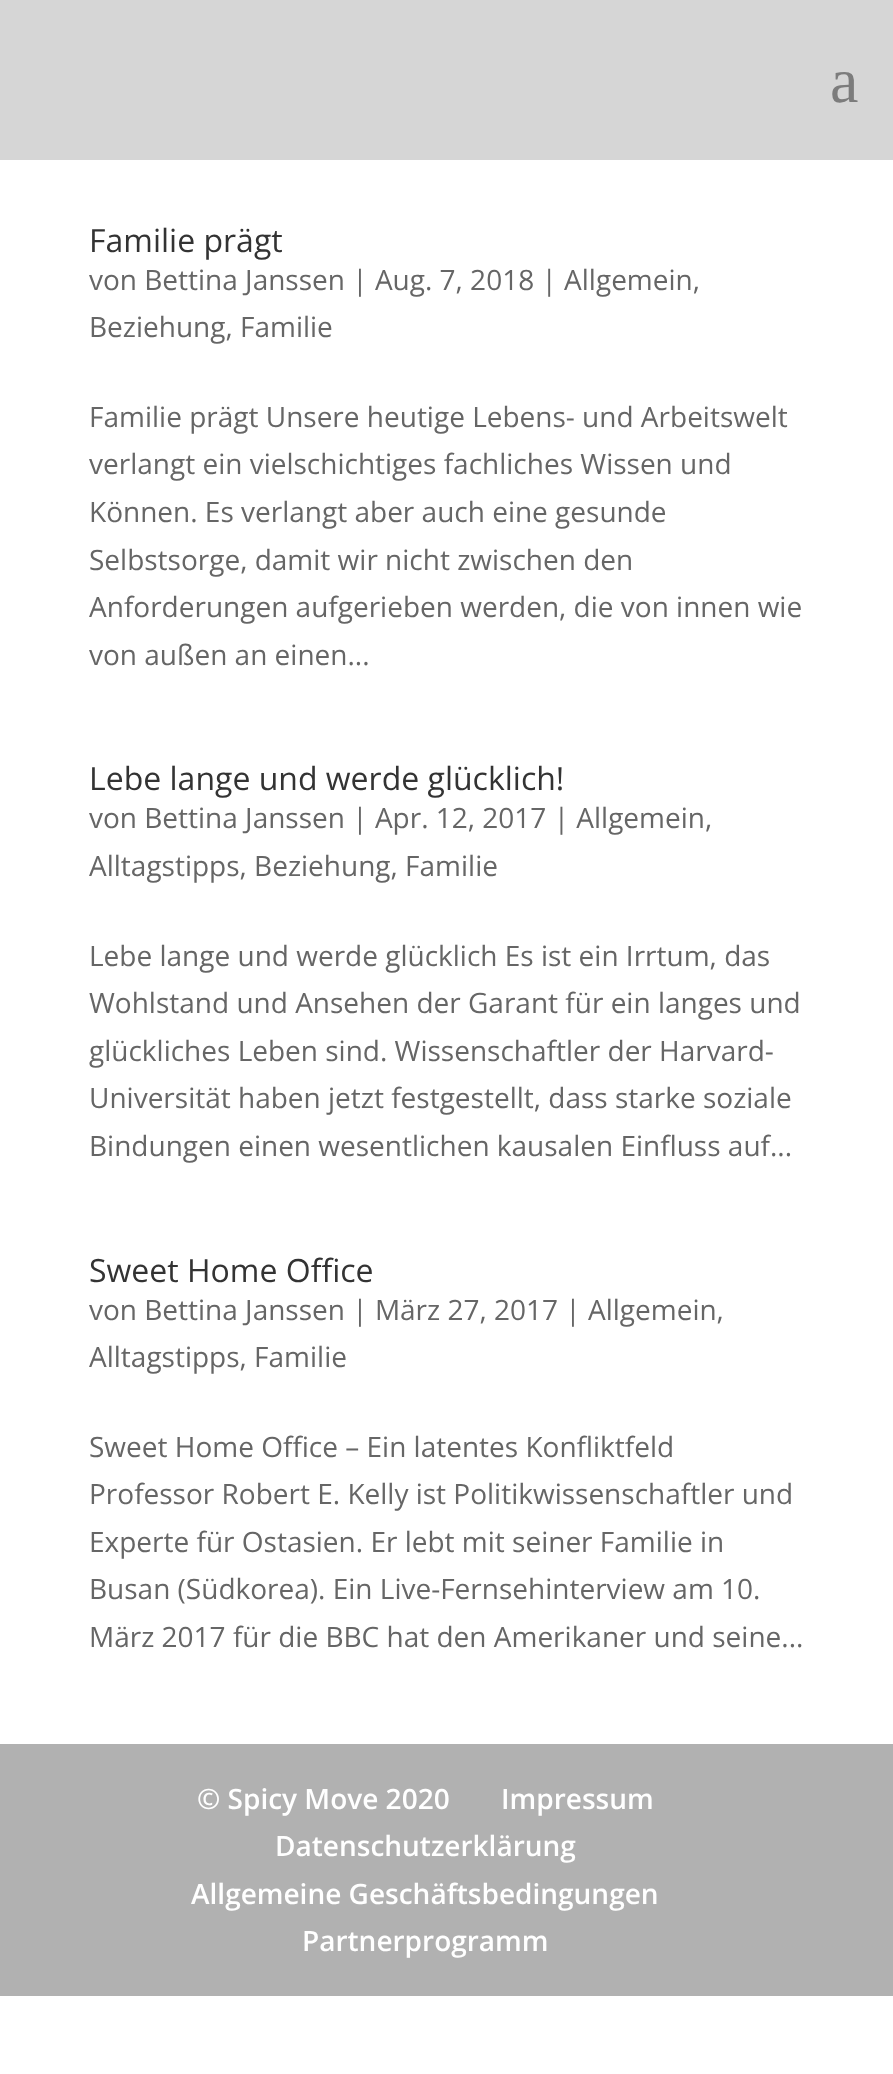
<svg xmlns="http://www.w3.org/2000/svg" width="893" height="2074">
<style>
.a{font:64px Liberation Serif;fill:#7c7c7c}
.b{font:32px Open Sans;fill:#333}
.c{font:28px Open Sans;fill:#666}
.d{font:600 28px Open Sans;fill:#fff}
</style>
<rect width="100%" height="100%" fill="#fff"/>
<path fill="#d6d6d6" d="M0 0h893v160H0z"/>
<path fill="#b1b1b1" d="M0 1744h893v252H0z"/>
<text class="a" x="830" y="102">a</text>
<text class="b" x="89" y="252">Familie prägt</text>
<text class="c" x="89" y="290">von Bettina Janssen | Aug. 7, 2018 | Allgemein,</text>
<text class="c" x="89" y="337">Beziehung, Familie</text>
<text class="c" x="89" y="427">Familie prägt Unsere heutige Lebens- und Arbeitswelt</text>
<text class="c" x="89" y="474">verlangt ein vielschichtiges fachliches Wissen und</text>
<text class="c" x="89" y="522">Können. Es verlangt aber auch eine gesunde</text>
<text class="c" x="89" y="570">Selbstsorge, damit wir nicht zwischen den</text>
<text class="c" x="89" y="617">Anforderungen aufgerieben werden, die von innen wie</text>
<text class="c" x="89" y="665">von außen an einen...</text>
<text class="b" x="89" y="790">Lebe lange und werde glücklich!</text>
<text class="c" x="89" y="828">von Bettina Janssen | Apr. 12, 2017 | Allgemein,</text>
<text class="c" x="89" y="876">Alltagstipps, Beziehung, Familie</text>
<text class="c" x="89" y="966">Lebe lange und werde glücklich Es ist ein Irrtum, das</text>
<text class="c" x="89" y="1013">Wohlstand und Ansehen der Garant für ein langes und</text>
<text class="c" x="89" y="1061">glückliches Leben sind. Wissenschaftler der Harvard-</text>
<text class="c" x="89" y="1108">Universität haben jetzt festgestellt, dass starke soziale</text>
<text class="c" x="89" y="1156">Bindungen einen wesentlichen kausalen Einfluss auf...</text>
<text class="b" x="89" y="1282">Sweet Home Office</text>
<text class="c" x="89" y="1320">von Bettina Janssen | März 27, 2017 | Allgemein,</text>
<text class="c" x="89" y="1367">Alltagstipps, Familie</text>
<text class="c" x="89" y="1457">Sweet Home Office – Ein latentes Konfliktfeld</text>
<text class="c" x="89" y="1504">Professor Robert E. Kelly ist Politikwissenschaftler und</text>
<text class="c" x="89" y="1552">Experte für Ostasien. Er lebt mit seiner Familie in</text>
<text class="c" x="89" y="1599">Busan (Südkorea). Ein Live-Fernsehinterview am 10.</text>
<text class="c" x="89" y="1647">März 2017 für die BBC hat den Amerikaner und seine...</text>
<text class="d" x="197" y="1809">© Spicy Move 2020</text>
<text class="d" x="501" y="1809">Impressum</text>
<text class="d" x="275" y="1856">Datenschutzerklärung</text>
<text class="d" x="191" y="1904">Allgemeine Geschäftsbedingungen</text>
<text class="d" x="302" y="1951">Partnerprogramm</text>
</svg>
